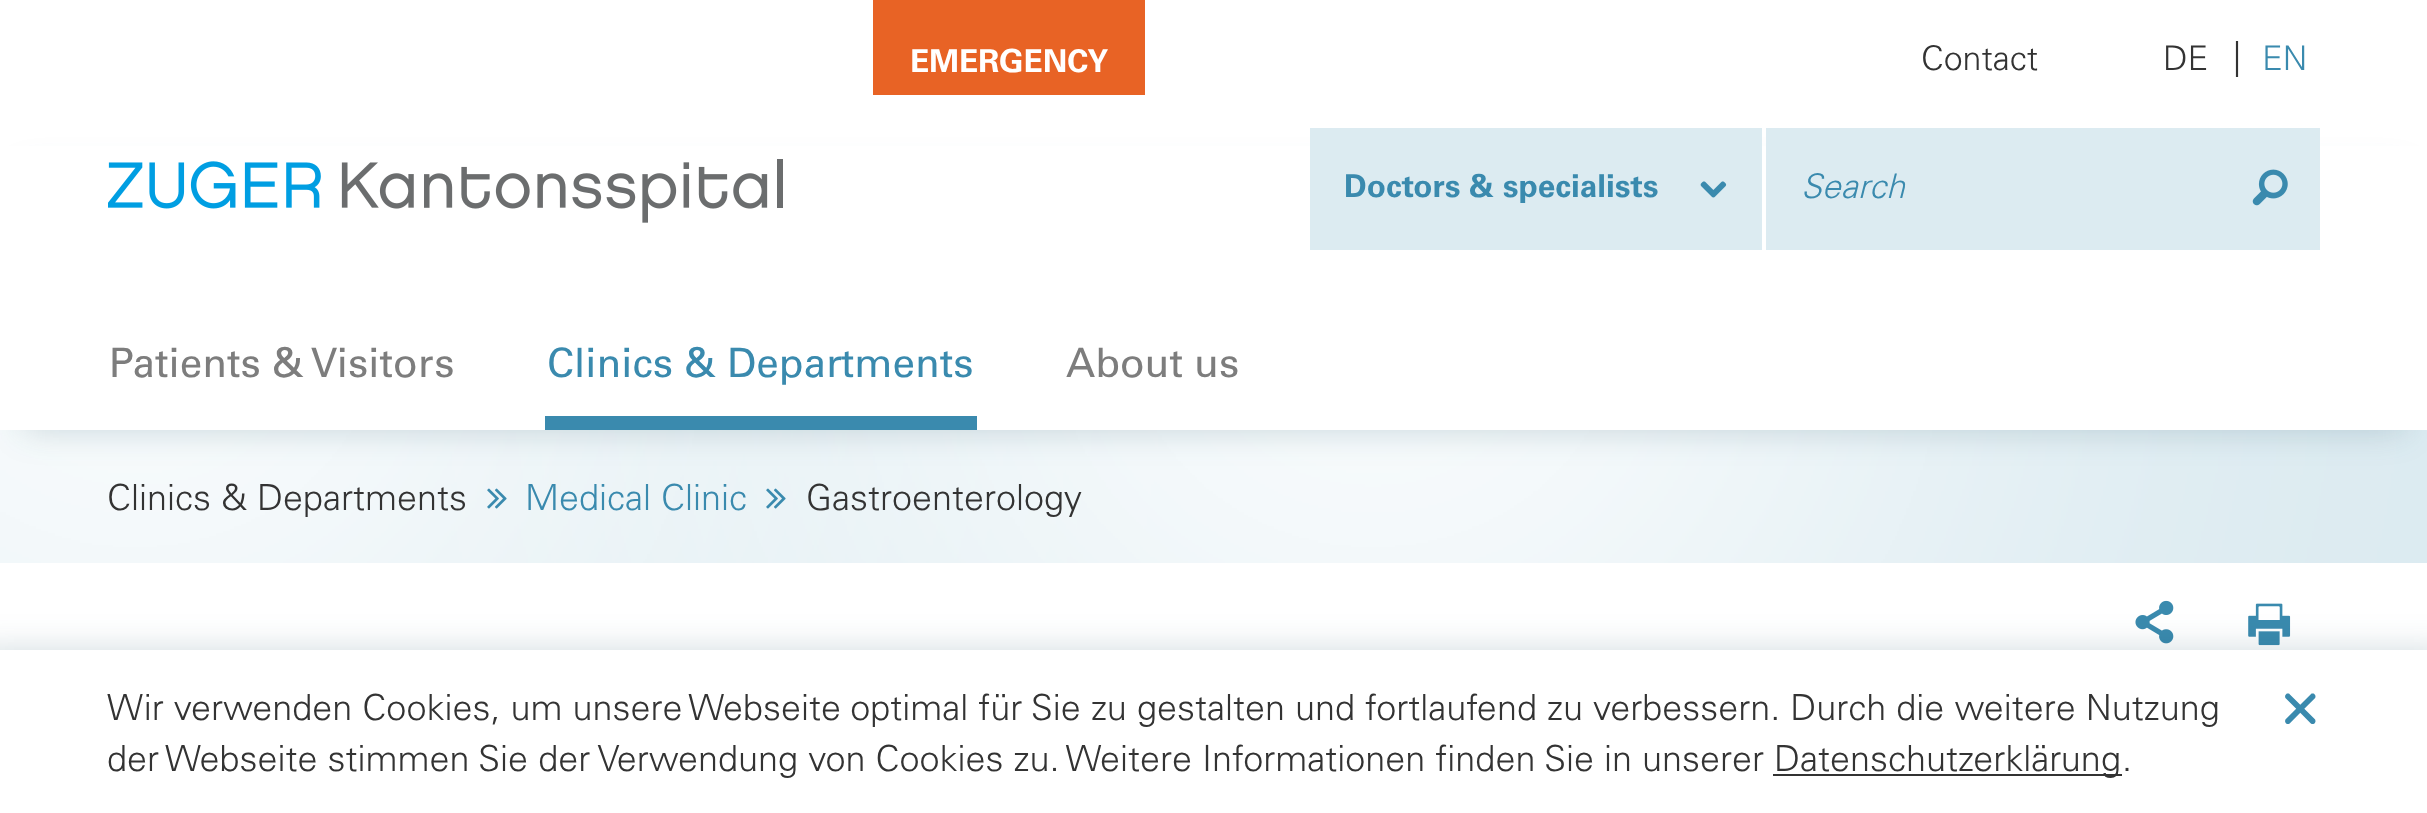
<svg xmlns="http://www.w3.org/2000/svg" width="2427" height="813">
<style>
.a{font:bold 31.5px 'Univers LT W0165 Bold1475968';fill:#fff}
.b{font:300 34px 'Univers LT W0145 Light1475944';fill:#333}
.c{font:300 36px 'Univers LT W0145 Light1475944';fill:#333}
.d{font:300 34px 'Univers LT W0145 Light1475944';fill:#3a8aae}
.e{font:bold 31.5px 'Univers LT W0165 Bold1475968';fill:#3a8aae}
.f{font:italic 300 34px 'Univers LT W0145 Light1475944';fill:#3a8aae}
.g{font:40.5px 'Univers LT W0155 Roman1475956';fill:#7d7d7d}
.h{font:40.5px 'Univers LT W0155 Roman1475956';fill:#3a8aae}
.i{font:300 36px 'Univers LT W0145 Light1475944';fill:#3a8aae}
.j{font:40.5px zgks;fill:#3a8aae}
</style>
<rect width="100%" height="100%" fill="#fff"/>
<path fill="#dcebf1" d="M0 430h2427v133H0z"/>
<rect fill="#fff" filter="blur(315px)" x="-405" y="-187" width="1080" height="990" rx="495"/>
<rect fill="#fff" filter="blur(315px)" x="833" y="-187" width="1080" height="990" rx="495"/>
<path fill="#e86325" d="M873 0h272v95H873z"/>
<path fill="#19495f33" filter="blur(17px)" d="M23 173h2382v257H23z"/>
<path fill="#fff" d="M0 146h2427v284H0z"/>
<image href="1.png" x="108" y="159" width="675" height="64"/>
<path fill="#dcebf1" d="M1310 128h452v122H1310z"/>
<image href="2.png" x="1700" y="181" width="27" height="17"/>
<path fill="#dcebf1" d="M1766 128h554v122H1766z"/>
<image href="3.png" x="2252" y="169" width="36" height="37"/>
<path fill="#3a8aae" d="M545 416h432v14H545z"/>
<image href="4.png" x="487" y="488" width="20" height="21"/>
<image href="5.png" x="766" y="488" width="20" height="21"/>
<image href="6.png" x="2135" y="600" width="39" height="44"/>
<image href="7.png" x="2248" y="603" width="43" height="43"/>
<path fill="#19495f33" filter="blur(17px)" d="M-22 650h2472v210H-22z"/>
<path fill="#fff" d="M0 650h2427v163H0z"/>
<path fill="#333" d="M1773 774h349v2H1773z"/>
<text class="a" x="910" y="72">EMERGENCY</text>
<text class="b" x="1921" y="70">Contact</text>
<text class="b" x="2163" y="70">DE</text>
<text class="c" x="2233" y="68">|</text>
<text class="d" x="2262" y="70">EN</text>
<text class="e" x="1344" y="197">Doctors &amp; specialists</text>
<text class="f" x="1801" y="198">Search</text>
<text class="g" x="109" y="377">Patients &amp; Visitors</text>
<text class="h" x="547" y="377">Clinics &amp; Departments</text>
<text class="g" x="1066" y="377">About us</text>
<text class="c" x="107" y="510">Clinics &amp; Departments</text>
<text class="i" x="525" y="510">Medical Clinic</text>
<text class="c" x="806" y="510">Gastroenterology</text>
<text class="c" x="107" y="720">Wir verwenden Cookies, um unsere Webseite optimal für Sie zu gestalten und fortlaufend zu verbessern. Durch die weitere Nutzung</text>
<text class="c" x="107" y="771">der Webseite stimmen Sie der Verwendung von Cookies zu. Weitere Informationen finden Sie in unserer</text>
<text class="c" x="1774" y="771">Datenschutzerklärung</text>
<text class="c" x="2122" y="771">.</text>
<text class="j" x="2280" y="729">1</text>
</svg>
